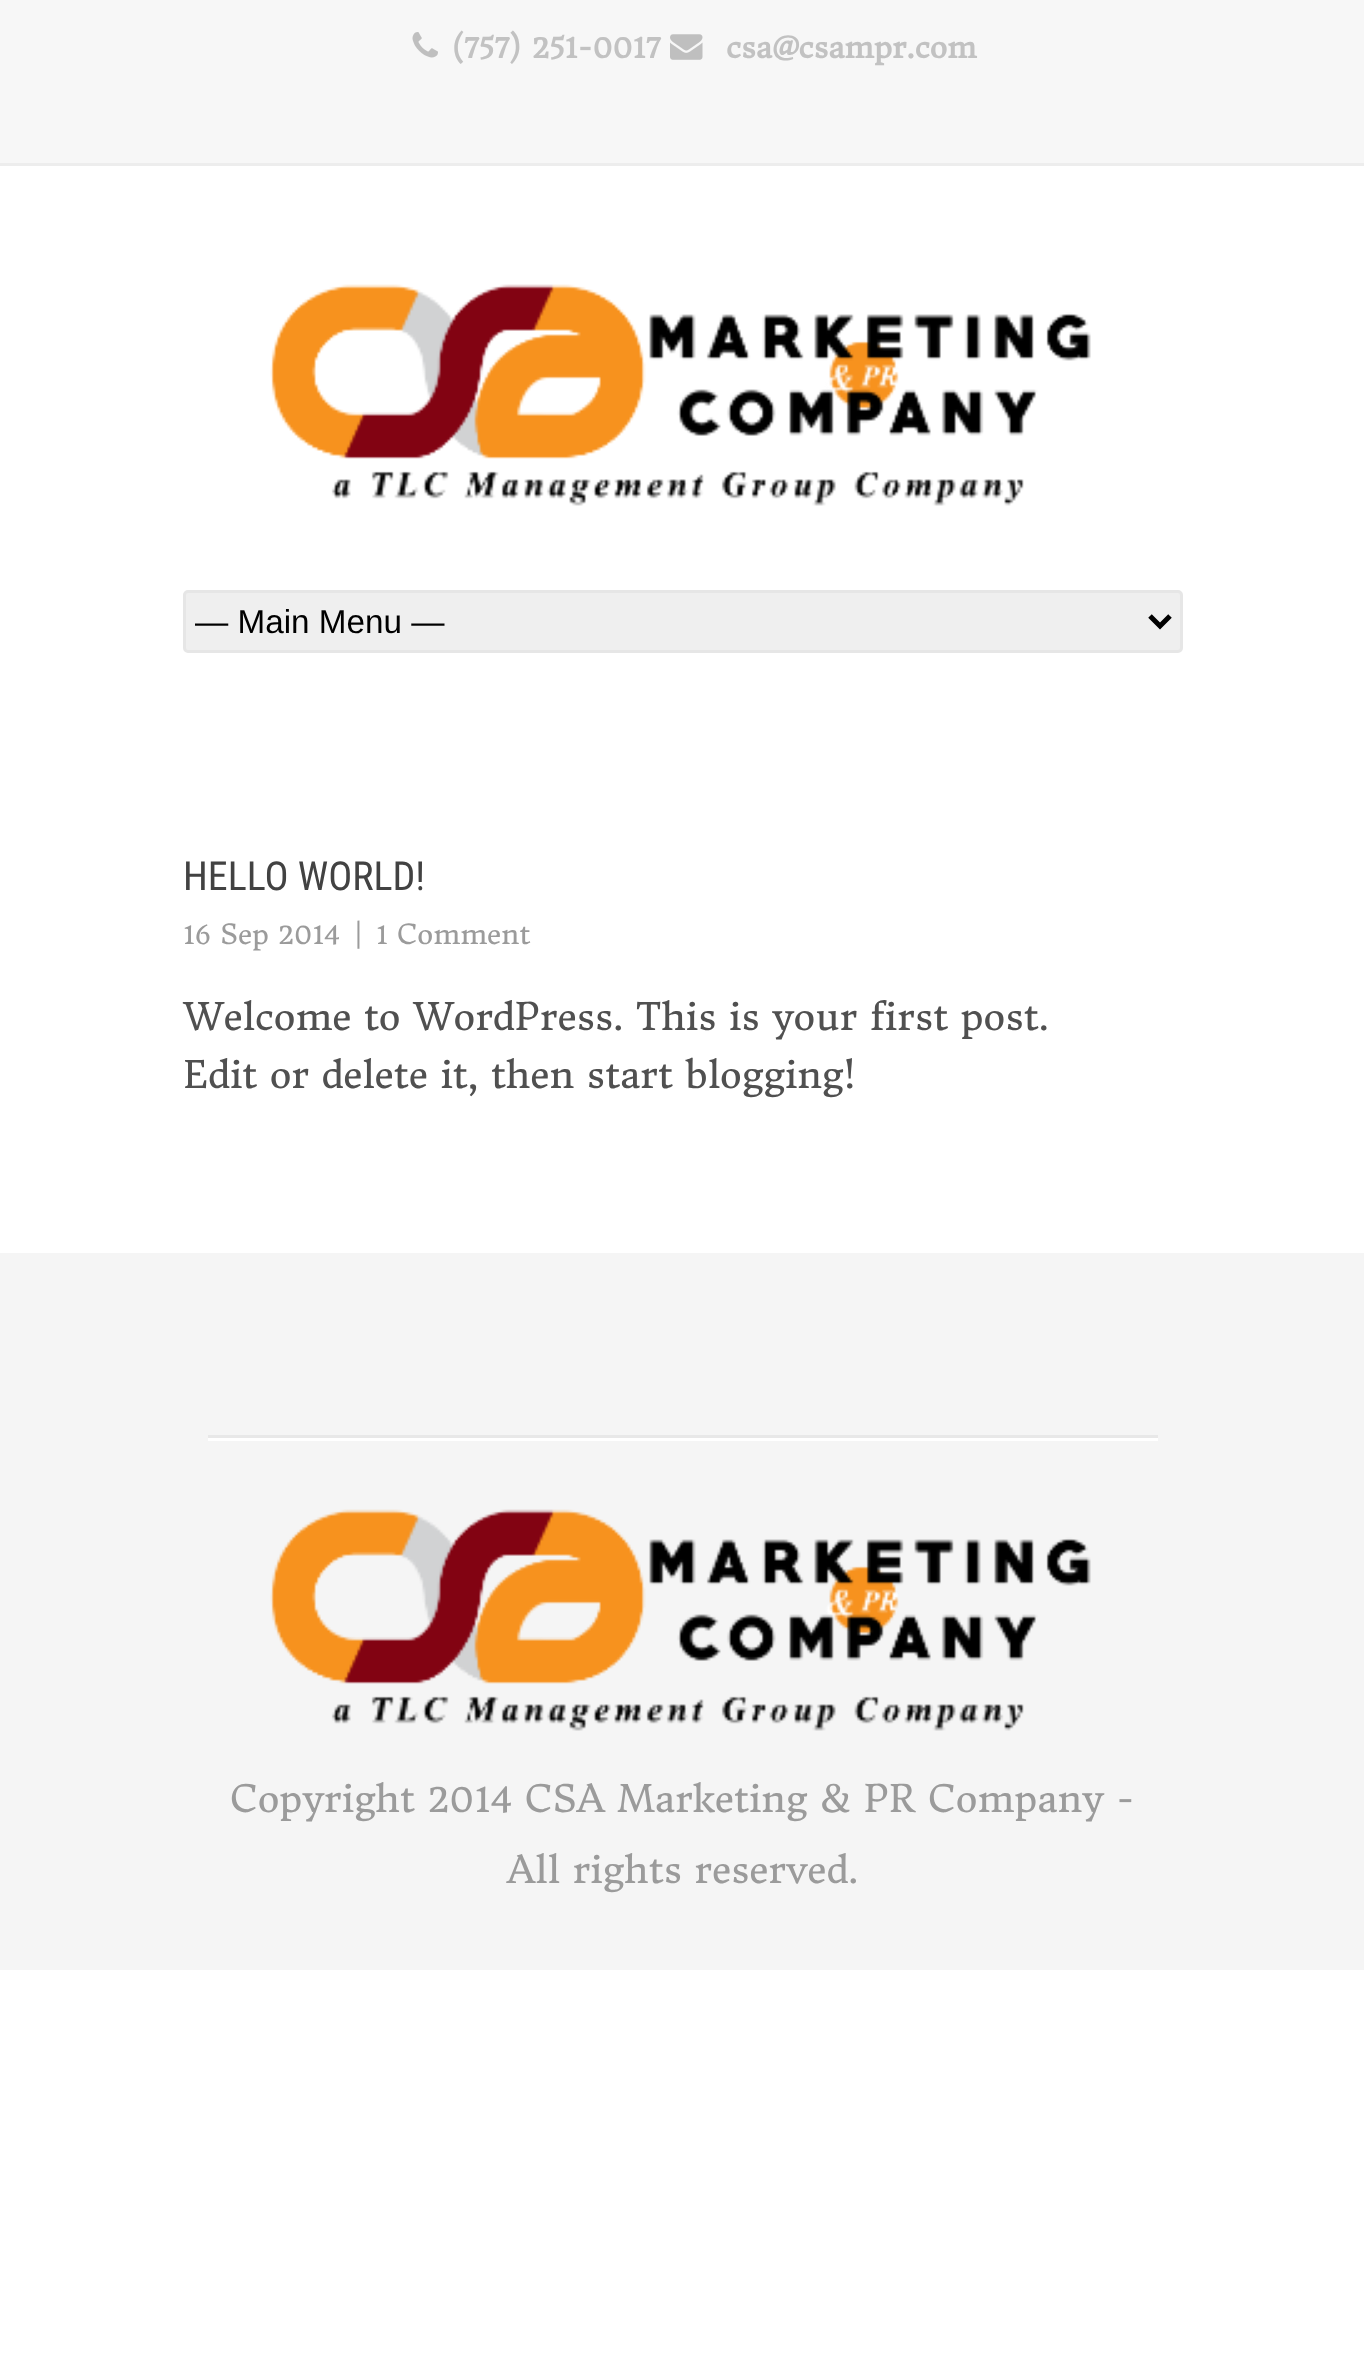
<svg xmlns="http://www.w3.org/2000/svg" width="1364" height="2364">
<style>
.a{font:bold 30px Donegal One;fill:#c2c2c2}
.b{font:33.25px Liberation Sans;fill:#000}
.c{font:40px Roboto Condensed;fill:#424242}
.d{font:27.5px Donegal One;fill:#9b9b9b}
.e{font:37.5px Donegal One;fill:#505050}
.f{font:37.5px Donegal One;fill:#9b9b9b}
</style>
<rect width="100%" height="100%" fill="#fff"/>
<path fill="#f7f7f7" d="M0 0h1364v163H0z"/>
<path fill="#ededed" d="M0 163h1364v3H0z"/>
<image href="1.png" x="412" y="32" width="26" height="26"/>
<image href="2.png" x="670" y="34" width="33" height="26"/>
<image href="3.png" x="270" y="284" width="821" height="222"/>
<rect fill="#efefef" stroke="#e6e6e6" stroke-width="3" x="184.5" y="591.5" width="997" height="60" rx="3.5"/>
<path fill="none" stroke="#000" stroke-width="5" d="M1150 616l10 10l10-10"/>
<path fill="#f5f5f5" d="M0 1253h1364v717H0z"/>
<path fill="#e8e8e8" d="M208 1435h950v3H208z"/>
<path fill="#fff" d="M208 1438h950v3H208z"/>
<image href="4.png" x="270" y="1509" width="821" height="222"/>
<text class="a" x="451" y="58">(757) 251-0017</text>
<text class="a" x="726" y="58">csa@csampr.com</text>
<text class="b" x="195" y="633">— Main Menu —</text>
<text class="c" x="183" y="890">HELLO WORLD!</text>
<text class="d" x="183" y="944">16 Sep 2014</text>
<text class="d" x="355" y="944">|</text>
<text class="d" x="376" y="944">1 Comment</text>
<text class="e" x="183" y="1030">Welcome to WordPress. This is your first post.</text>
<text class="e" x="183" y="1088">Edit or delete it, then start blogging!</text>
<text class="f" x="230" y="1812">Copyright 2014 CSA Marketing &amp; PR Company -</text>
<text class="f" x="507" y="1883">All rights reserved.</text>
</svg>
